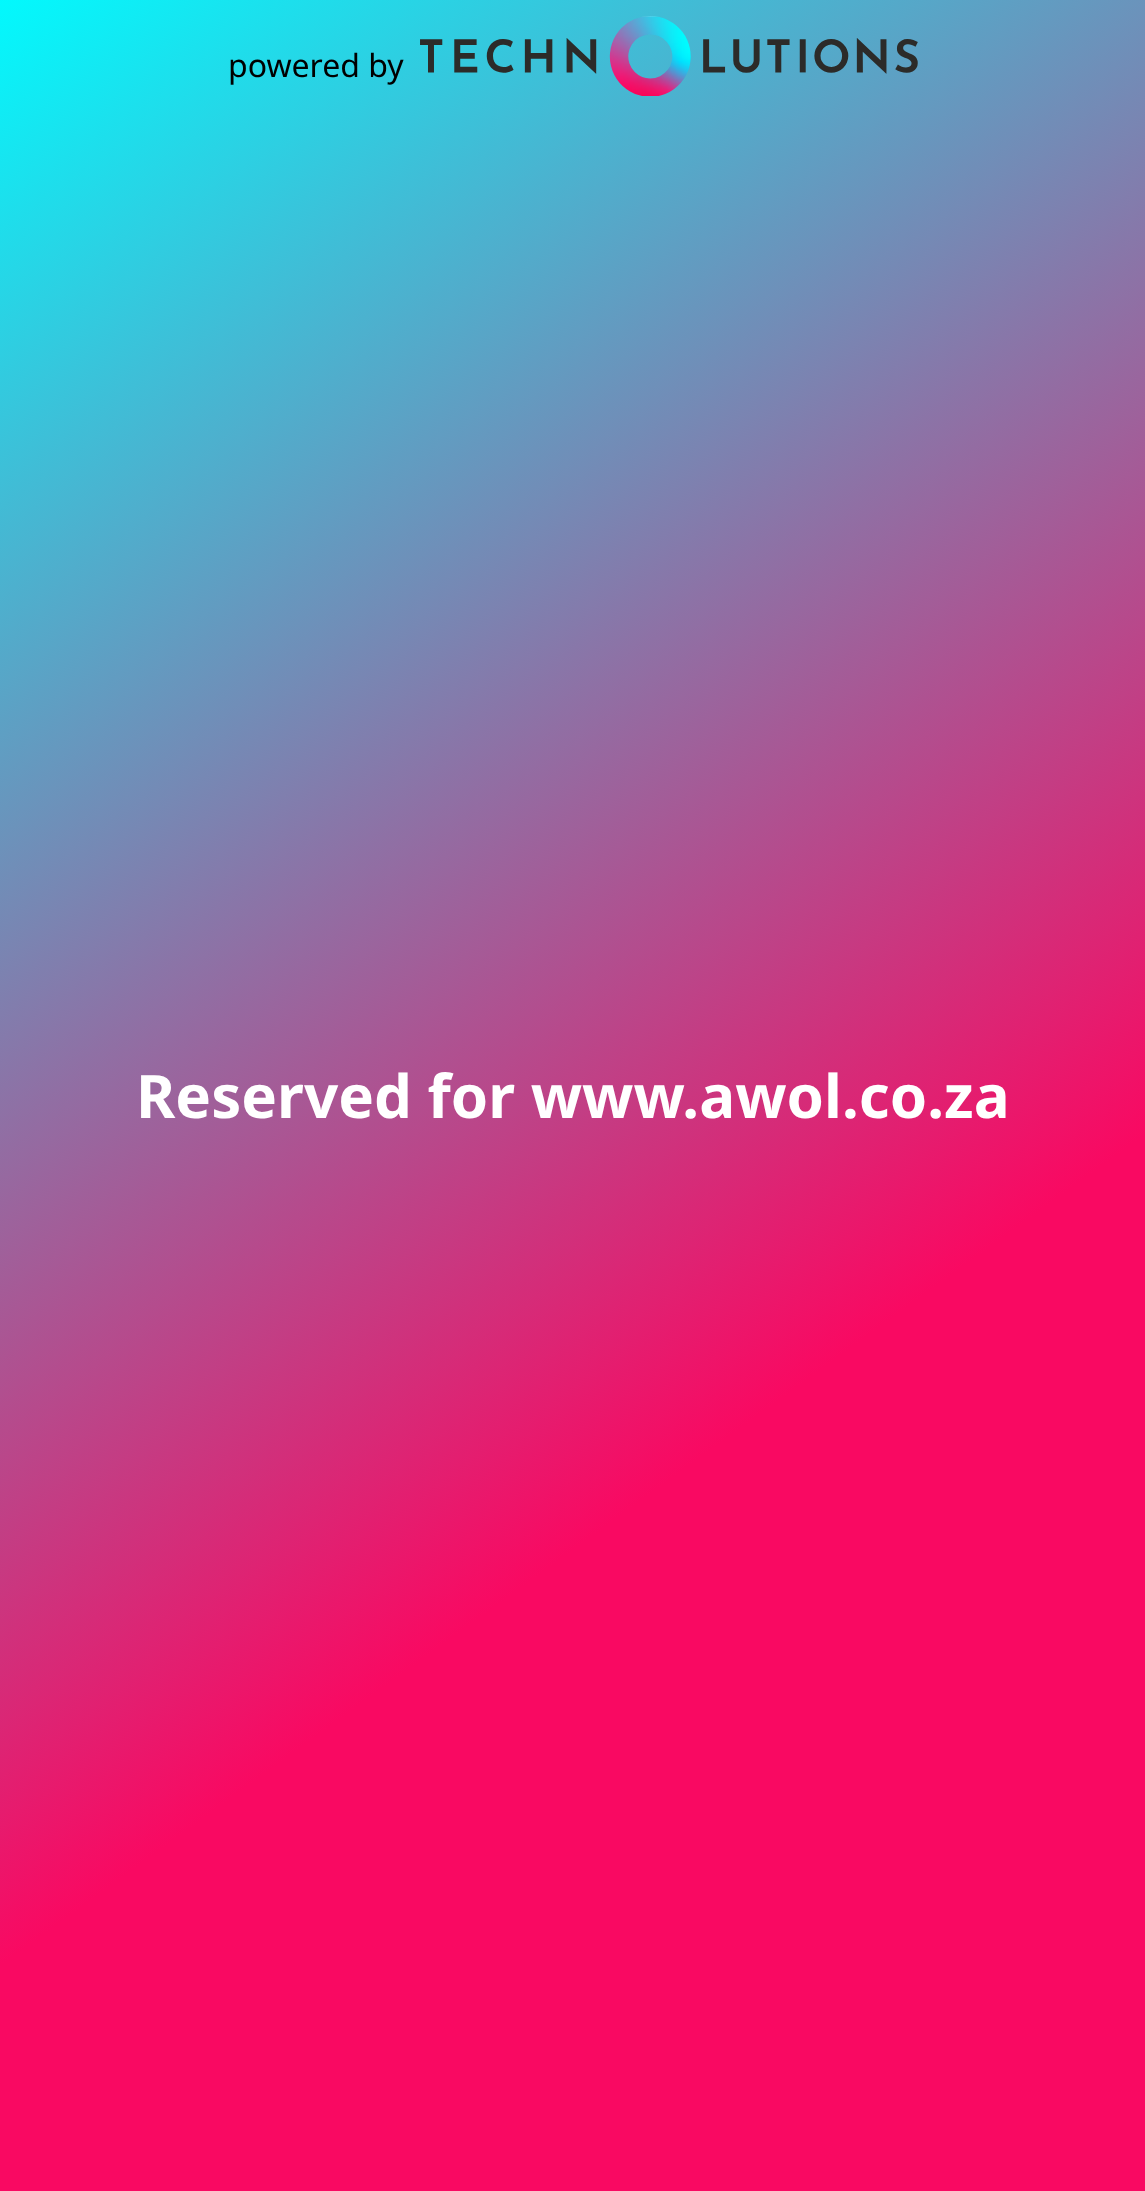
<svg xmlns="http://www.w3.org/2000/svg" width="1145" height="2191">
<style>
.a{font:32px Noto Sans;fill:#000}
.b{font:bold 60px Noto Sans;fill:#fff}
</style>
<defs>
<linearGradient id="g1" gradientUnits="userSpaceOnUse" x1="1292" y1="2086" x2="-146" y2="106"><stop offset="0.35" stop-color="#f90962"/><stop offset="1" stop-color="#02f9fd"/></linearGradient>
</defs>
<rect width="100%" height="100%" fill="#fff"/>
<path fill="url(#g1)" d="M0 0h1145v2191H0z"/>
<image href="1.png" x="420" y="16" width="498" height="80"/>
<text class="a" x="228" y="77">powered by</text>
<text class="b" x="136" y="1118">Reserved for www.awol.co.za</text>
</svg>
